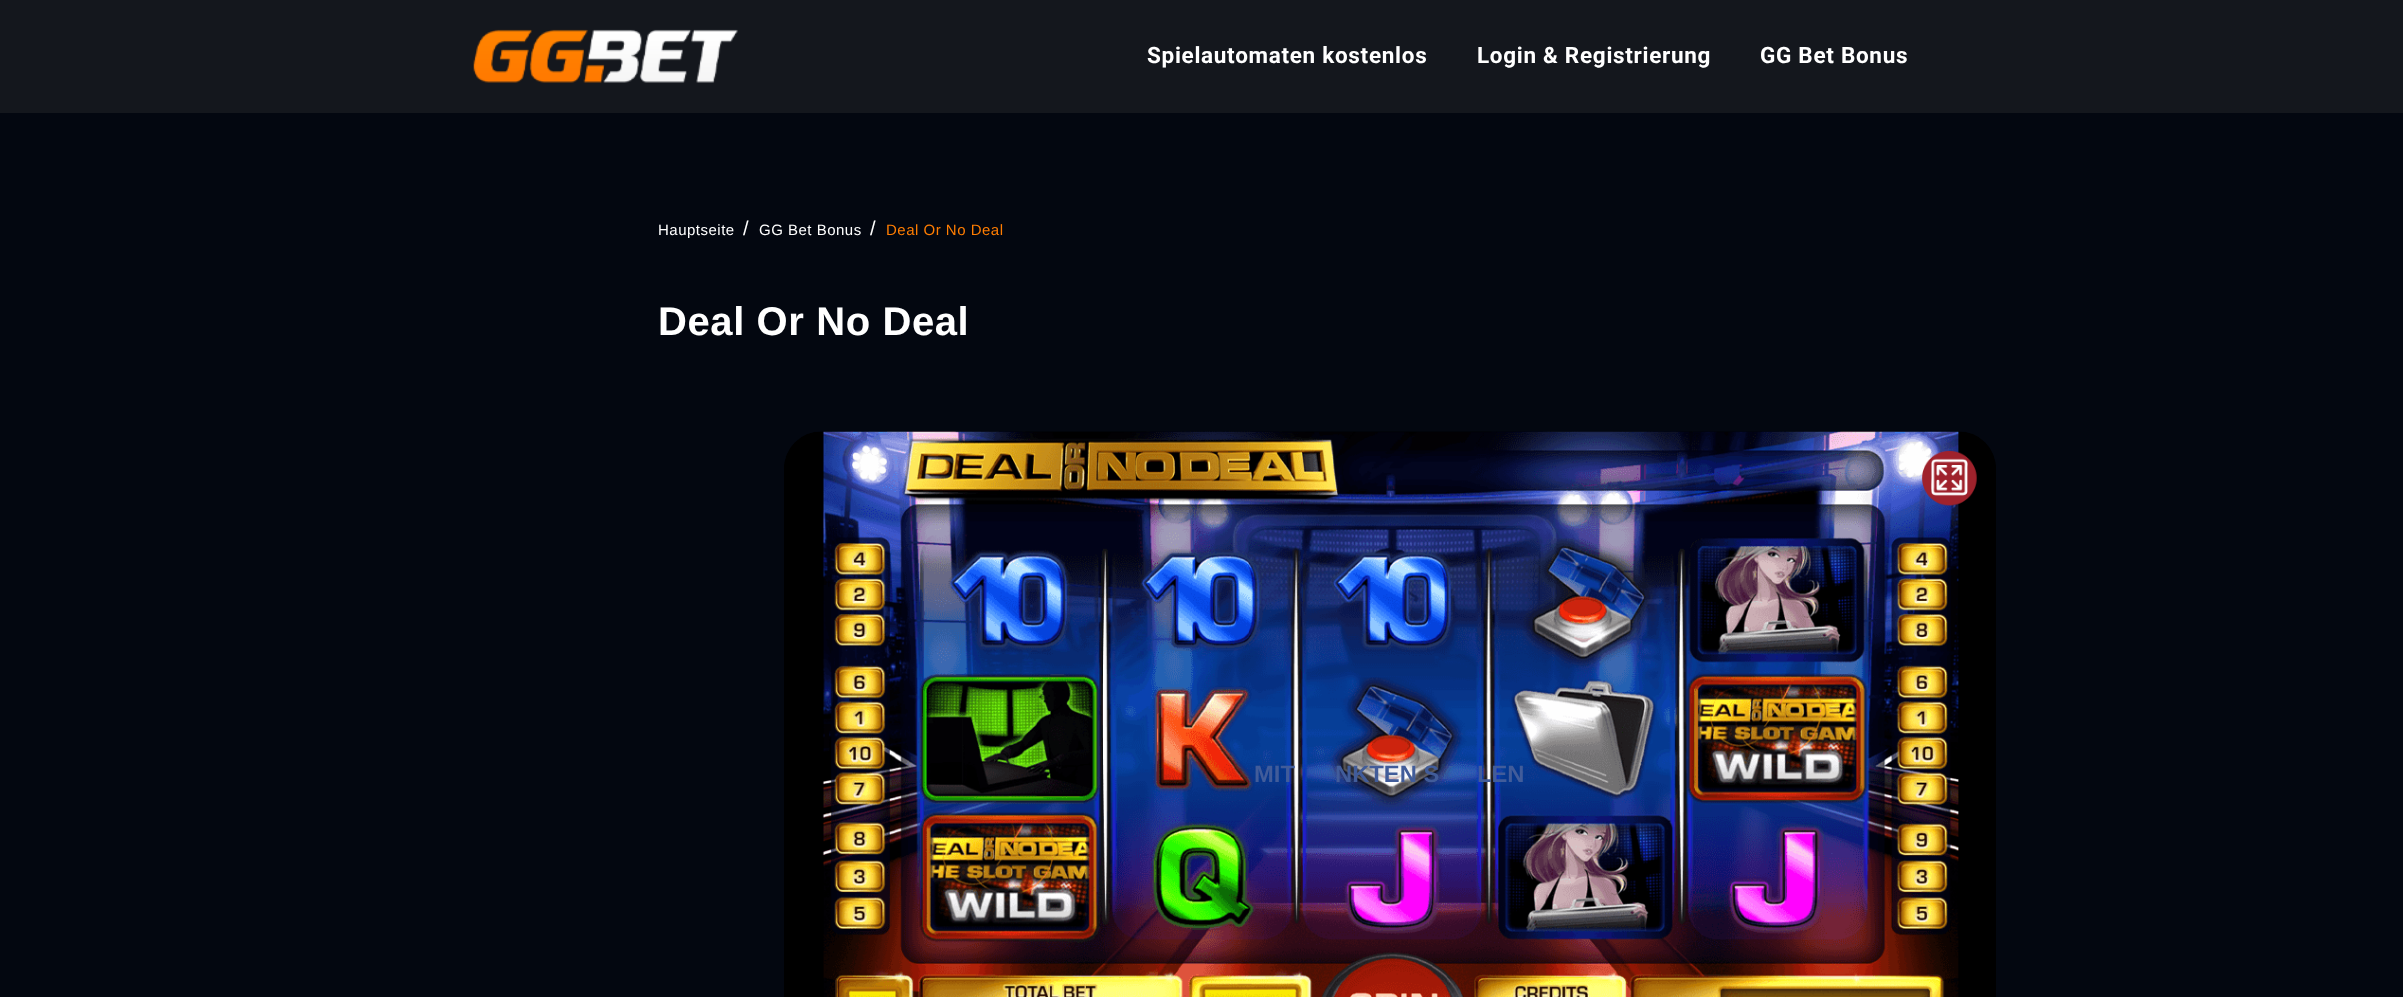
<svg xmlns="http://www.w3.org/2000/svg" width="2403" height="997">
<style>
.a{font:bold 22.5px Roboto;letter-spacing:0.7px;fill:#fff}
.b{font:15px Liberation Sans;letter-spacing:0.5px;fill:#fff}
.c{font:20px Liberation Sans;letter-spacing:0.6px;fill:#fff}
.d{font:15px Liberation Sans;letter-spacing:0.5px;fill:#ff7d02}
.e{font:bold 40px Liberation Sans;letter-spacing:0.6px;fill:#fff}
.f{font:bold 23.75px Liberation Sans;fill:#415c9a}
</style>
<rect width="100%" height="100%" fill="#030710"/>
<path fill="#14171d" d="M0 0h2403v113H0z"/>
<image href="1.png" x="473" y="29" width="265" height="54"/>
<image href="2.png" x="784" y="431" width="1212" height="566"/>
<image href="3.png" x="1922" y="450" width="55" height="56"/>
<text class="a" x="1147" y="63">Spielautomaten kostenlos</text>
<text class="a" x="1477" y="63">Login &amp; Registrierung</text>
<text class="a" x="1760" y="63">GG Bet Bonus</text>
<text class="b" x="658" y="235">Hauptseite</text>
<text class="c" x="743" y="235">/</text>
<text class="b" x="759" y="235">GG Bet Bonus</text>
<text class="c" x="870" y="235">/</text>
<text class="d" x="886" y="235">Deal Or No Deal</text>
<text class="e" x="658" y="335">Deal Or No Deal</text>
<text class="f" x="1254" y="782">MIT</text>
<text class="f" x="1335" y="782">NKTEN S</text>
<text class="f" x="1477" y="782">LEN</text>
</svg>
